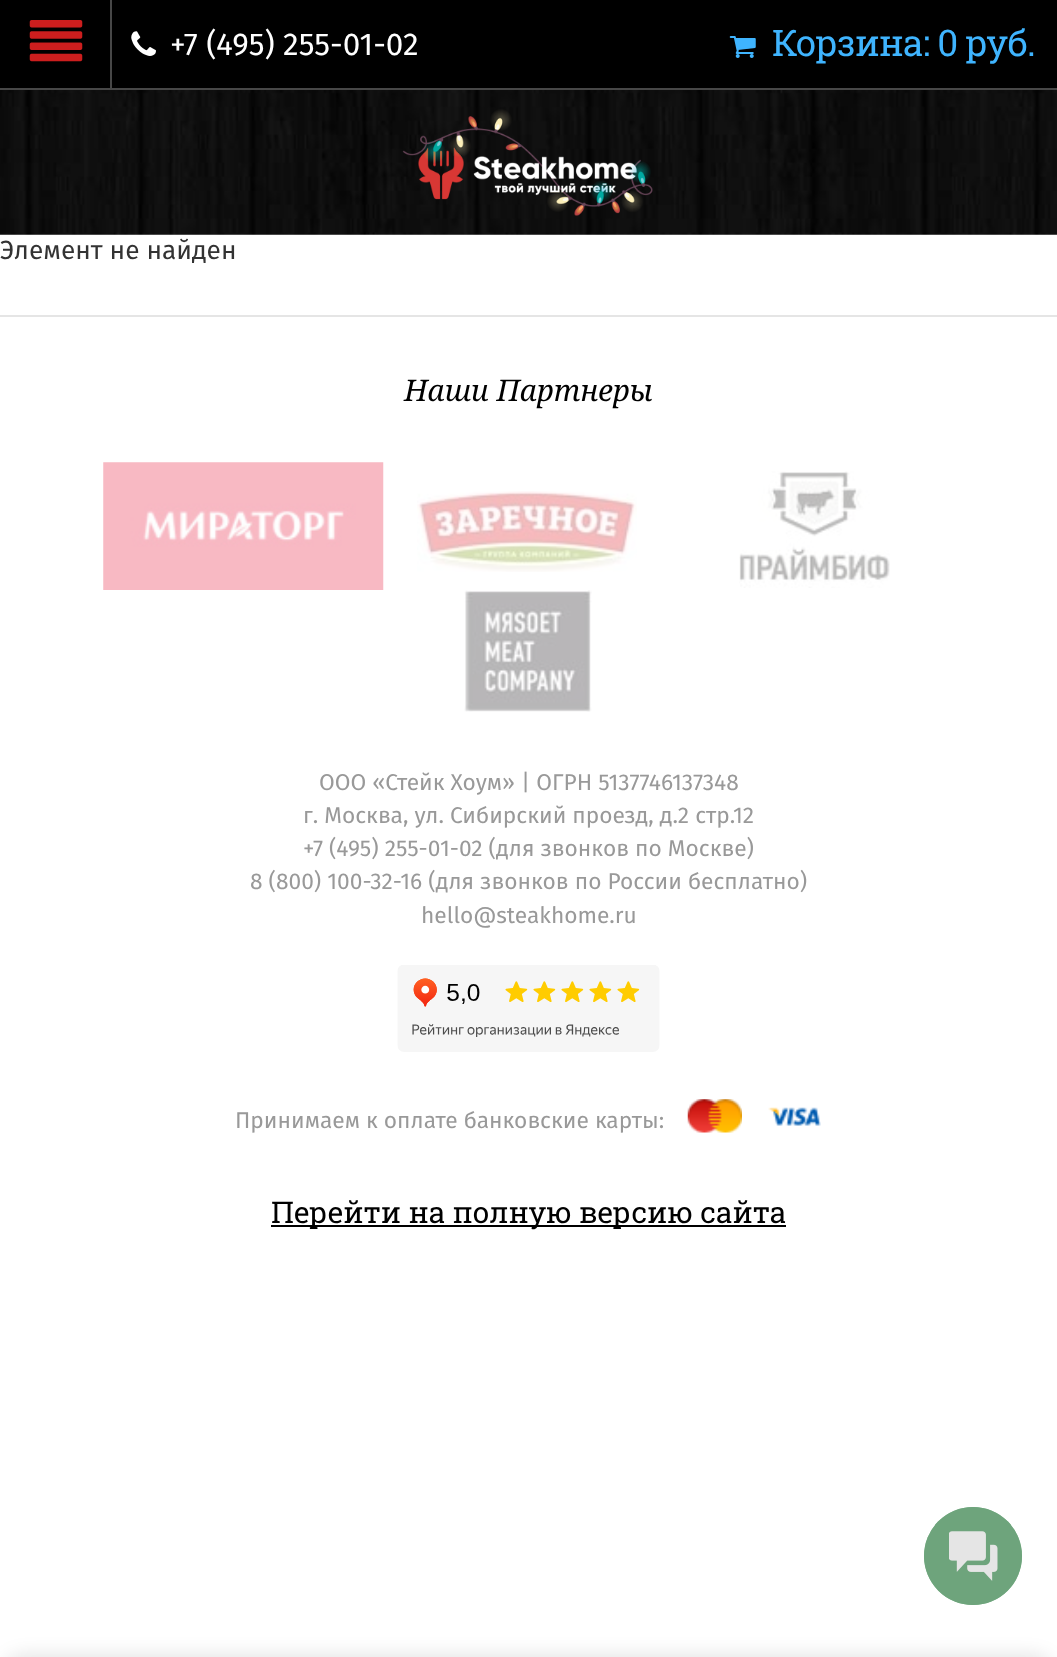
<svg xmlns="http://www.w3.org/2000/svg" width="1057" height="1657">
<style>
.a{font:31.5px Fira Sans;fill:#fff}
.b{font:36.75px Roboto Slab;letter-spacing:-0.9px;fill:#3fb4fe}
.c{font:26.25px Fira Sans;fill:#333}
.d{font:italic 29.75px Noto Serif;fill:#000}
.e{font:22.75px Fira Sans;fill:#999}
.f{font:29.75px Roboto Slab;fill:#000}
</style>
<rect width="100%" height="100%" fill="#fff"/>
<path fill="#000" d="M0 0h1057v88H0z"/>
<path fill="#474747" d="M0 88h1057v2H0z"/>
<path fill="#474747" d="M110 0h2v88H110z"/>
<image href="1.png" x="29" y="20" width="54" height="42"/>
<image href="2.png" x="131" y="31" width="25" height="25"/>
<image href="3.png" x="0" y="90" width="1057" height="145"/>
<image href="4.png" x="729" y="36" width="27" height="22"/>
<image href="5.png" x="402" y="109" width="251" height="107"/>
<path fill="#e5e5e5" d="M0 315h1057v2H0z"/>
<image href="6.png" x="103" y="462" width="281" height="128"/>
<image href="7.png" x="417" y="491" width="220" height="81"/>
<image href="8.png" x="739" y="471" width="151" height="117"/>
<image href="9.png" x="464" y="590" width="128" height="122"/>
<image href="10.png" x="397" y="965" width="263" height="87"/>
<image href="11.png" x="687" y="1099" width="55" height="34"/>
<image href="12.png" x="768" y="1107" width="53" height="19"/>
<path fill="#000" d="M271 1225h515v2H271z"/>
<circle fill="#107c2c" cx="973" cy="1556" r="49"/>
<image href="13.png" x="949" y="1531" width="49" height="50"/>
<circle fill="#cccccc80" cx="973" cy="1556" r="49"/>
<rect fill="#0000001a" filter="blur(9px)" y="1654" width="1057" height="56" rx="26"/>
<text class="a" x="170" y="55">+7 (495) 255-01-02</text>
<text class="b" x="772" y="56">Корзина: 0 руб.</text>
<text class="c" x="0" y="259">Элемент не найден</text>
<text class="d" x="404" y="401">Наши Партнеры</text>
<text class="e" x="319" y="790">ООО «Стейк Хоум» | ОГРН 5137746137348</text>
<text class="e" x="303" y="823">г. Москва, ул. Сибирский проезд, д.2 стр.12</text>
<text class="e" x="303" y="856">+7 (495) 255-01-02 (для звонков по Москве)</text>
<text class="e" x="250" y="889">8 (800) 100-32-16 (для звонков по России бесплатно)</text>
<text class="e" x="421" y="923">hello@steakhome.ru</text>
<text class="e" x="235" y="1128">Принимаем к оплате банковские карты:</text>
<text class="f" x="271" y="1223">Перейти на полную версию сайта</text>
</svg>
